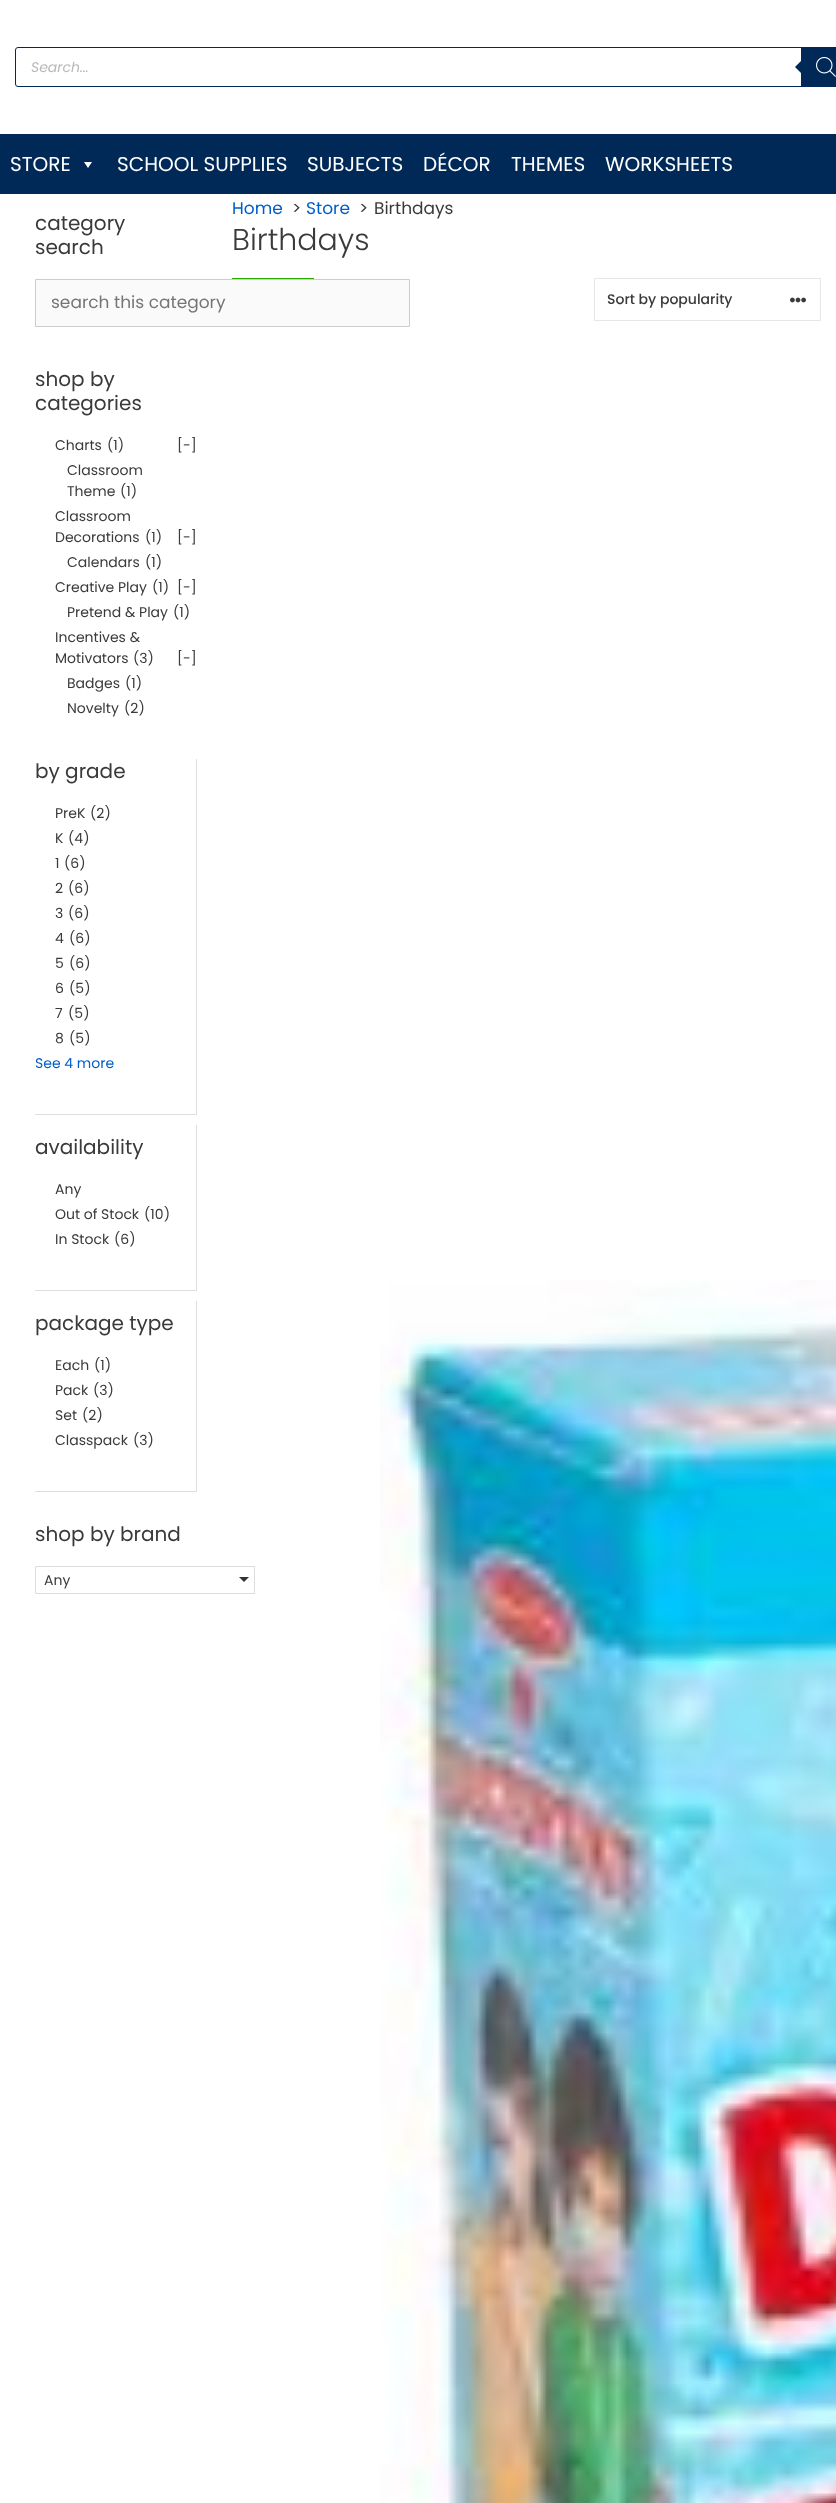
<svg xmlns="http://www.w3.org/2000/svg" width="836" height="2503">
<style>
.a{font:italic 14px Poppins;fill:#b8b8b8}
.b{font:20px Poppins;fill:#fff}
.c{font:20px Poppins;fill:#3a3a3a}
.d{font:17px Poppins;fill:#757575}
.e{font:14px Poppins;fill:#3a3a3a}
.f{font:14px Poppins;fill:#005ec8}
.g{font:17px Poppins;fill:#005ec8}
.h{font:17px Poppins;fill:#3a3a3a}
.i{font:300 30px Poppins;fill:#3a3a3a}
.j{font:500 14px Poppins;fill:#3a3a3a}
</style>
<rect width="100%" height="100%" fill="#002957"/>
<path fill="#fff" d="M0 0h836v134H0z"/>
<rect fill="none" stroke="#002957" x="15.5" y="47.5" width="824" height="39" rx="2.5"/>
<path fill="#002957" d="M801 48h35v38H801z"/>
<path fill="#002957" d="M803 59v16l-8-8z"/>
<image href="1.png" x="816" y="57" width="20" height="20"/>
<path fill="#fff" d="M92 162l-4 6l-4-6z"/>
<path fill="#fff" d="M0 194h836v2309H0z"/>
<path fill="#fafafa" stroke="#ccc" d="M35.5 279.5h374v47H35.5z"/>
<path fill="#dedede" d="M197 759v356l-1-1v-355z"/>
<path fill="#00000021" d="M197 1115h-162v-1h161z"/>
<path fill="#dedede" d="M197 1125v166l-1-1v-165z"/>
<path fill="#00000021" d="M197 1291h-162v-1h161z"/>
<path fill="#dedede" d="M197 1301v191l-1-1v-190z"/>
<path fill="#00000021" d="M197 1492h-162v-1h161z"/>
<path fill="none" stroke="#ddd" d="M35.5 1566.5h219v27H35.5z"/>
<path fill="#333" d="M239 1577h10l-5 5z"/>
<path fill="#29a900" d="M232 278h82v1H232z"/>
<path fill="none" stroke="#e6e6e6" d="M594.5 278.5h226v42H594.5z"/>
<image href="2.png" x="790" y="297" width="16" height="6"/>
<image href="3.png" x="380" y="1280" width="456" height="1223"/>
<text class="a" x="31" y="72">Search...</text>
<text class="b" x="10" y="171">STORE</text>
<text class="b" x="117" y="171">SCHOOL SUPPLIES</text>
<text class="b" x="307" y="171">SUBJECTS</text>
<text class="b" x="423" y="171">DÉCOR</text>
<text class="b" x="511" y="171">THEMES</text>
<text class="b" x="605" y="171">WORKSHEETS</text>
<text class="c" x="35" y="230">category</text>
<text class="c" x="35" y="254">search</text>
<text class="d" x="51" y="308">search this category</text>
<text class="c" x="35" y="386">shop by</text>
<text class="c" x="35" y="410">categories</text>
<text class="e" x="55" y="450">Charts</text>
<text class="e" x="107" y="450">(1)</text>
<text class="e" x="177" y="450">[-]</text>
<text class="e" x="67" y="475">Classroom</text>
<text class="e" x="67" y="496">Theme</text>
<text class="e" x="120" y="496">(1)</text>
<text class="e" x="55" y="521">Classroom</text>
<text class="e" x="55" y="542">Decorations</text>
<text class="e" x="145" y="542">(1)</text>
<text class="e" x="177" y="542">[-]</text>
<text class="e" x="67" y="567">Calendars</text>
<text class="e" x="145" y="567">(1)</text>
<text class="e" x="55" y="592">Creative Play</text>
<text class="e" x="152" y="592">(1)</text>
<text class="e" x="177" y="592">[-]</text>
<text class="e" x="67" y="617">Pretend &amp; Play</text>
<text class="e" x="173" y="617">(1)</text>
<text class="e" x="55" y="642">Incentives &amp;</text>
<text class="e" x="55" y="663">Motivators</text>
<text class="e" x="133" y="663">(3)</text>
<text class="e" x="177" y="663">[-]</text>
<text class="e" x="67" y="688">Badges</text>
<text class="e" x="125" y="688">(1)</text>
<text class="e" x="67" y="713">Novelty</text>
<text class="e" x="124" y="713">(2)</text>
<text class="c" x="35" y="778">by grade</text>
<text class="e" x="55" y="818">PreK</text>
<text class="e" x="90" y="818">(2)</text>
<text class="e" x="55" y="843">K</text>
<text class="e" x="68" y="843">(4)</text>
<text class="e" x="55" y="868">1</text>
<text class="e" x="64" y="868">(6)</text>
<text class="e" x="55" y="893">2</text>
<text class="e" x="68" y="893">(6)</text>
<text class="e" x="55" y="918">3</text>
<text class="e" x="68" y="918">(6)</text>
<text class="e" x="55" y="943">4</text>
<text class="e" x="69" y="943">(6)</text>
<text class="e" x="55" y="968">5</text>
<text class="e" x="69" y="968">(6)</text>
<text class="e" x="55" y="993">6</text>
<text class="e" x="69" y="993">(5)</text>
<text class="e" x="55" y="1018">7</text>
<text class="e" x="68" y="1018">(5)</text>
<text class="e" x="55" y="1043">8</text>
<text class="e" x="69" y="1043">(5)</text>
<text class="f" x="35" y="1068">See 4 more</text>
<text class="c" x="35" y="1154">availability</text>
<text class="e" x="55" y="1194">Any</text>
<text class="e" x="55" y="1219">Out of Stock</text>
<text class="e" x="144" y="1219">(10)</text>
<text class="e" x="55" y="1244">In Stock</text>
<text class="e" x="114" y="1244">(6)</text>
<text class="c" x="35" y="1330">package type</text>
<text class="e" x="55" y="1370">Each</text>
<text class="e" x="94" y="1370">(1)</text>
<text class="e" x="55" y="1395">Pack</text>
<text class="e" x="93" y="1395">(3)</text>
<text class="e" x="55" y="1420">Set</text>
<text class="e" x="82" y="1420">(2)</text>
<text class="e" x="55" y="1445">Classpack</text>
<text class="e" x="133" y="1445">(3)</text>
<text class="c" x="35" y="1541">shop by brand</text>
<text class="e" x="44" y="1585">Any</text>
<text class="g" x="232" y="214">Home</text>
<text class="h" x="292" y="214">&gt;</text>
<text class="g" x="306" y="214">Store</text>
<text class="h" x="359" y="214">&gt;</text>
<text class="h" x="374" y="214">Birthdays</text>
<text class="i" x="232" y="250">Birthdays</text>
<text class="j" x="607" y="304">Sort by popularity</text>
</svg>
